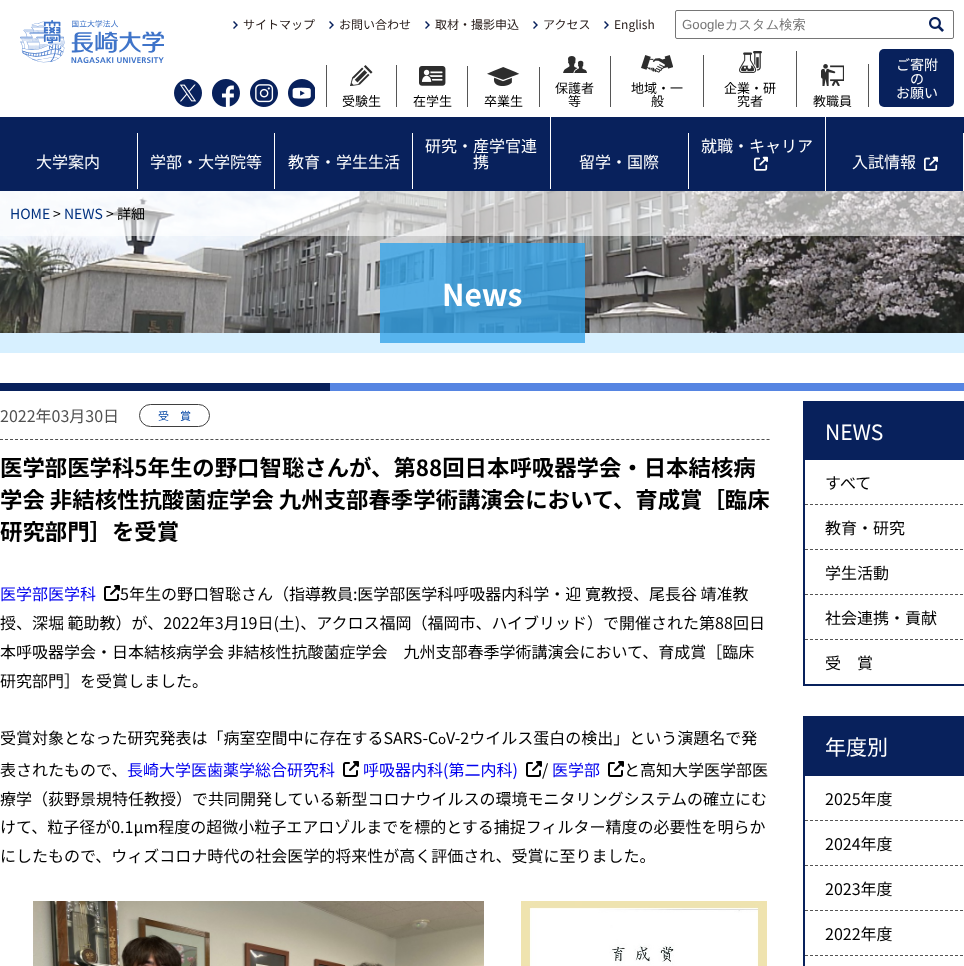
<svg xmlns="http://www.w3.org/2000/svg" width="964" height="966">
<style>
.a{font:12px Noto Sans JP;fill:#231815}
.b{font:13.25px Liberation Sans;fill:#757575}
.c{font:500 13.25px WenQuanYi Zen Hei;fill:#757575}
.d{font:13px Noto Sans JP;fill:#000}
.e{font:14px Noto Sans JP;fill:#fff}
.f{font:16px Noto Sans JP;fill:#fff}
.g{font:14px Noto Sans JP;fill:#00317f}
.h{font:14px Noto Sans JP;fill:#000}
.i{font:bold 30px Noto Sans JP;fill:#fff}
.j{font:16px Noto Sans JP;fill:#505050}
.k{font:11px Noto Sans JP;fill:#0c4ca8}
.l{font:bold 22.4px Noto Sans JP;fill:#000}
.m{font:16px Noto Sans JP;fill:#00e}
.n{font:16px Noto Sans JP;fill:#000}
.o{font:13.25px Noto Sans JP;fill:#000}
.p{font:21px Noto Sans JP;fill:#fff}
</style>
<rect width="100%" height="100%" fill="#fff"/>
<image href="1.png" x="20" y="20" width="144" height="43"/>
<image href="2.png" x="233" y="21" width="5" height="8"/>
<image href="2.png" x="329" y="21" width="5" height="8"/>
<image href="2.png" x="425" y="21" width="5" height="8"/>
<image href="2.png" x="533" y="21" width="5" height="8"/>
<image href="2.png" x="604" y="21" width="5" height="8"/>
<rect fill="none" stroke="#767676" x="675.5" y="10.5" width="278" height="28" rx="1.5"/>
<image href="3.png" x="929" y="17" width="15" height="15"/>
<image href="4.png" x="174" y="79" width="28" height="28"/>
<image href="5.png" x="212" y="79" width="28" height="28"/>
<image href="6.png" x="250" y="79" width="28" height="28"/>
<image href="7.png" x="288" y="79" width="27" height="28"/>
<path fill="#565656" d="M396 65h1v42H396z"/>
<path fill="#565656" d="M326 65h1v42H326z"/>
<image href="8.png" x="350" y="65" width="23" height="21"/>
<path fill="#565656" d="M467 66h1v41H467z"/>
<image href="9.png" x="419" y="66" width="27" height="20"/>
<path fill="#565656" d="M539 67h1v40H539z"/>
<image href="10.png" x="487" y="67" width="33" height="19"/>
<path fill="#565656" d="M610 56h1v51H610z"/>
<image href="11.png" x="563" y="56" width="24" height="17"/>
<path fill="#565656" d="M703 55h1v52H703z"/>
<image href="12.png" x="641" y="55" width="32" height="18"/>
<path fill="#565656" d="M796 51h1v56H796z"/>
<image href="13.png" x="739" y="51" width="23" height="22"/>
<path fill="#565656" d="M868 64h1v43H868z"/>
<image href="14.png" x="821" y="64" width="23" height="22"/>
<rect fill="#08215c" x="879" y="49" width="75" height="58" rx="5"/>
<path fill="#08215c" d="M0 117h964v74H0z"/>
<path fill="#fff" d="M550 117h1v72H550z"/>
<path fill="#fff" d="M825 117h1v74H825z"/>
<image href="15.png" x="754" y="156" width="14" height="15"/>
<path fill="#fff" d="M137 133h1v56H137z"/>
<path fill="#fff" d="M274 133h1v56H274z"/>
<path fill="#fff" d="M412 133h1v56H412z"/>
<path fill="#fff" d="M688 133h1v56H688z"/>
<path fill="#fff" d="M963 133h1v58H963z"/>
<image href="15.png" x="924" y="156" width="14" height="15"/>
<path fill="#d7f0ff" d="M0 333h964v20H0z"/>
<image href="16.png" x="0" y="191" width="964" height="142"/>
<path fill="#ffffff99" d="M0 191h964v45H0z"/>
<path fill="#36a4e8cc" d="M380 243h205v100H380z"/>
<path fill="#5685e2" d="M330 383h634v8H330z"/>
<path fill="#08215c" d="M0 383h330v8H0z"/>
<rect fill="none" stroke="#3f3f3f" x="139.5" y="404.5" width="70" height="22" rx="11"/>
<path fill="none" stroke="#505050" stroke-dasharray="3 2.01" d="M0 439.5h770"/>
<image href="17.png" x="104" y="585" width="16" height="16"/>
<image href="17.png" x="343" y="761" width="16" height="16"/>
<image href="17.png" x="526" y="761" width="16" height="16"/>
<image href="17.png" x="608" y="761" width="16" height="16"/>
<image href="18.png" x="33" y="901" width="451" height="65"/>
<image href="19.png" x="521" y="901" width="246" height="65"/>
<path fill="none" stroke="#08215c" stroke-width="2" d="M804 402h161v283H804z"/>
<path fill="#08215c" d="M805 403h159v57H805z"/>
<path fill="none" stroke="#545454" stroke-dasharray="3 2" d="M805 504.5h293"/>
<path fill="none" stroke="#545454" stroke-dasharray="3 2" d="M805 549.5h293"/>
<path fill="none" stroke="#545454" stroke-dasharray="3 2" d="M805 594.5h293"/>
<path fill="none" stroke="#545454" stroke-dasharray="3 2" d="M805 639.5h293"/>
<path fill="none" stroke="#08215c" stroke-width="2" d="M804 717h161v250H804z"/>
<path fill="#08215c" d="M805 718h159v58H805z"/>
<path fill="none" stroke="#545454" stroke-dasharray="3 2" d="M805 820.5h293"/>
<path fill="none" stroke="#545454" stroke-dasharray="3 2" d="M805 865.5h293"/>
<path fill="none" stroke="#545454" stroke-dasharray="3 2" d="M805 910.5h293"/>
<path fill="none" stroke="#545454" stroke-dasharray="3 2" d="M805 955.5h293"/>
<text class="a" x="243" y="29">サイトマップ</text>
<text class="a" x="339" y="29">お問い合わせ</text>
<text class="a" x="435" y="29">取材・撮影申込</text>
<text class="a" x="543" y="29">アクセス</text>
<text class="a" x="614" y="29">English</text>
<text class="b" x="682" y="29">Google</text>
<text class="c" x="725" y="29">カスタム検索</text>
<text class="d" x="342" y="106">受験生</text>
<text class="d" x="413" y="106">在学生</text>
<text class="d" x="484" y="106">卒業生</text>
<text class="d" x="555" y="93">保護者</text>
<text class="d" x="568" y="106">等</text>
<text class="d" x="631" y="93">地域・一</text>
<text class="d" x="651" y="106">般</text>
<text class="d" x="724" y="93">企業・研</text>
<text class="d" x="737" y="106">究者</text>
<text class="d" x="813" y="106">教職員</text>
<text class="e" x="896" y="70">ご寄附</text>
<text class="e" x="910" y="84">の</text>
<text class="e" x="896" y="98">お願い</text>
<text class="f" x="425" y="152">研究・産学官連</text>
<text class="f" x="473" y="168">携</text>
<text class="f" x="701" y="152">就職・キャリア</text>
<text class="f" x="36" y="168">大学案内</text>
<text class="f" x="150" y="168">学部・大学院等</text>
<text class="f" x="288" y="168">教育・学生生活</text>
<text class="f" x="579" y="168">留学・国際</text>
<text class="f" x="852" y="168">入試情報</text>
<text class="g" x="10" y="219">HOME</text>
<text class="h" x="53" y="219">&gt;</text>
<text class="g" x="64" y="219">NEWS</text>
<text class="h" x="106" y="219">&gt; 詳細</text>
<text class="i" x="442" y="306">News</text>
<text class="j" x="0" y="422">2022年03月30日</text>
<text class="k" x="158" y="420">受　賞</text>
<text class="l" x="0" y="476">医学部医学科5年生の野口智聡さんが、第88回日本呼吸器学会・日本結核病</text>
<text class="l" x="0" y="508">学会 非結核性抗酸菌症学会 九州支部春季学術講演会において、育成賞［臨床</text>
<text class="l" x="0" y="540">研究部門］を受賞</text>
<text class="m" x="0" y="600">医学部医学科</text>
<text class="n" x="120" y="600">5年生の野口智聡さん（指導教員:医学部医学科呼吸器内科学・迎 寛教授、尾長谷 靖准教</text>
<text class="n" x="0" y="629">授、深堀 範助教）が、2022年3月19日(土)、アクロス福岡（福岡市、ハイブリッド）で開催された第88回日</text>
<text class="n" x="0" y="658">本呼吸器学会・日本結核病学会 非結核性抗酸菌症学会　九州支部春季学術講演会において、育成賞［臨床</text>
<text class="n" x="0" y="687">研究部門］を受賞しました。</text>
<text class="n" x="0" y="744">受賞対象となった研究発表は「病室空間中に存在するSARS-C</text>
<text class="o" x="438" y="744">o</text>
<text class="n" x="446" y="744">V-2ウイルス蛋白の検出」という演題名で発</text>
<text class="n" x="0" y="776">表されたもので、</text>
<text class="m" x="127" y="776">長崎大学医歯薬学総合研究科</text>
<text class="m" x="363" y="776">呼吸器内科(第二内科)</text>
<text class="n" x="542" y="776">/</text>
<text class="m" x="552" y="776">医学部</text>
<text class="n" x="624" y="776">と高知大学医学部医</text>
<text class="n" x="0" y="805">療学（荻野景規特任教授）で共同開発している新型コロナウイルスの環境モニタリングシステムの確立にむ</text>
<text class="n" x="0" y="833">けて、粒子径が0.1µm程度の超微小粒子エアロゾルまでを標的とする捕捉フィルター精度の必要性を明らか</text>
<text class="n" x="0" y="862">にしたもので、ウィズコロナ時代の社会医学的将来性が高く評価され、受賞に至りました。</text>
<text class="p" x="825" y="440">NEWS</text>
<text class="n" x="825" y="489">すべて</text>
<text class="n" x="825" y="534">教育・研究</text>
<text class="n" x="825" y="579">学生活動</text>
<text class="n" x="825" y="624">社会連携・貢献</text>
<text class="n" x="825" y="669">受　賞</text>
<text class="p" x="825" y="755">年度別</text>
<text class="n" x="825" y="805">2025年度</text>
<text class="n" x="825" y="850">2024年度</text>
<text class="n" x="825" y="895">2023年度</text>
<text class="n" x="825" y="940">2022年度</text>
</svg>
